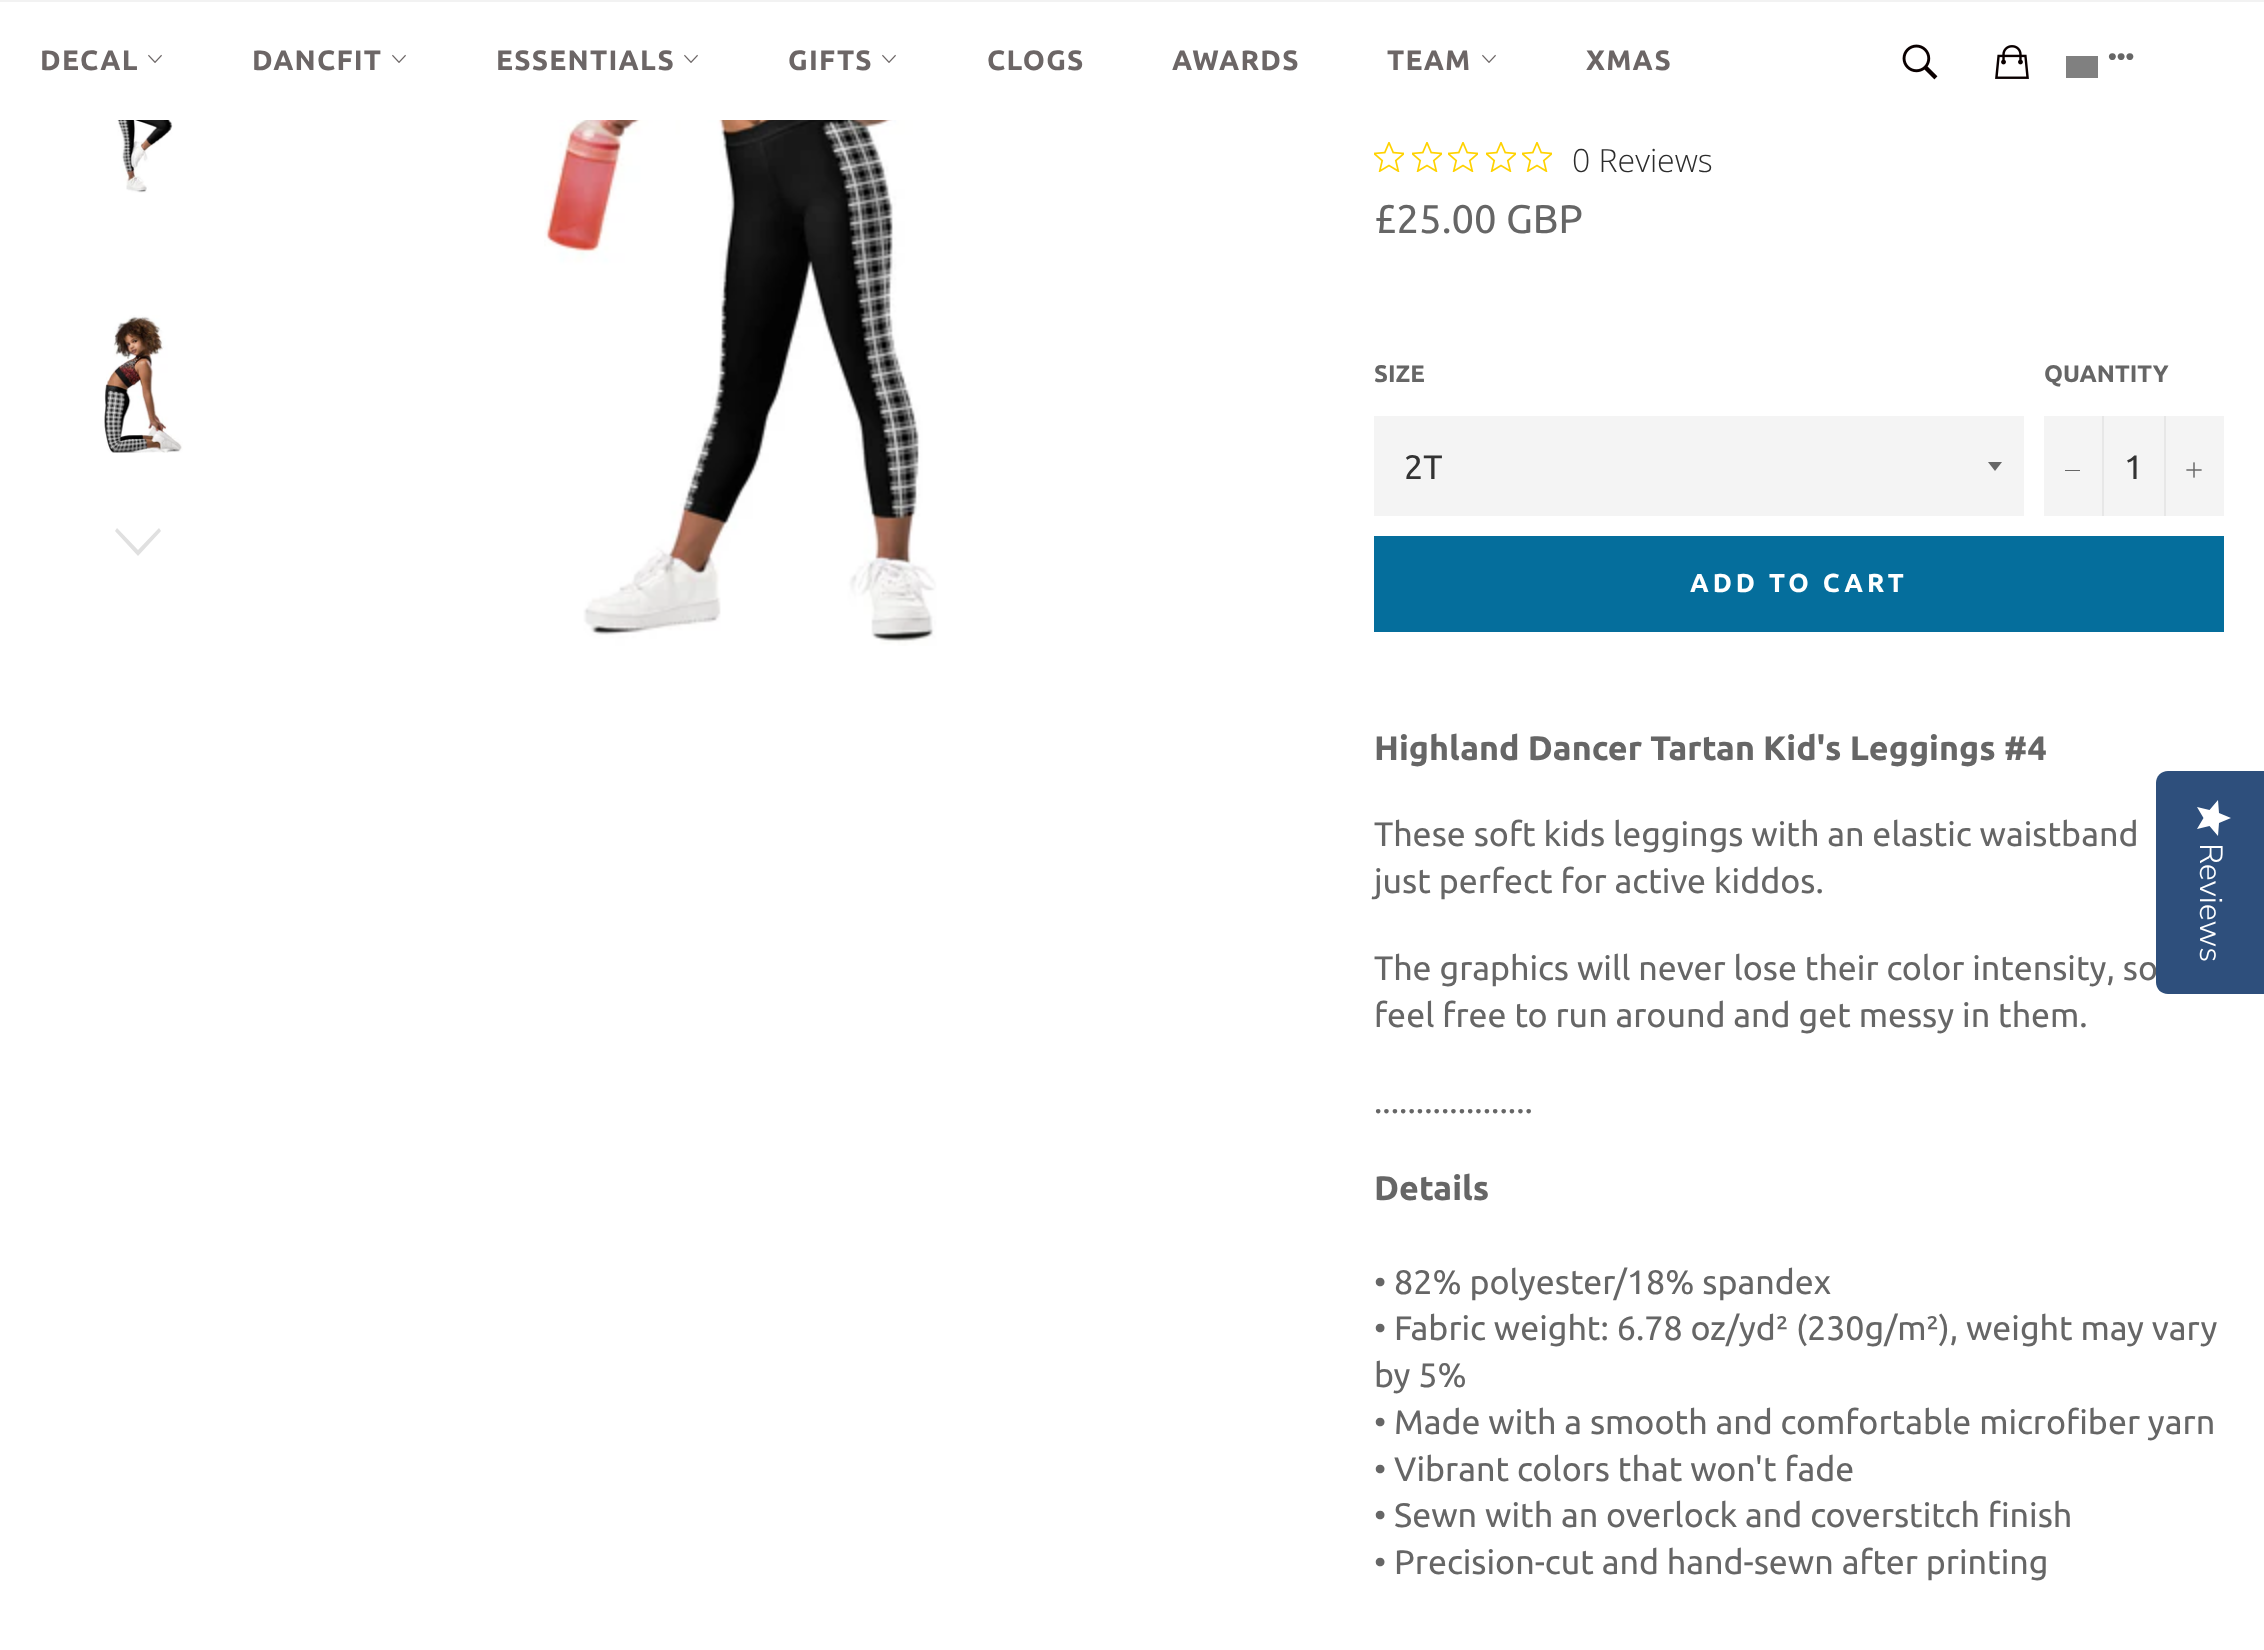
<svg xmlns="http://www.w3.org/2000/svg" width="2264" height="1650">
<style>
.a{font:bold 28px Ubuntu;letter-spacing:1.25px;fill:#6c6666}
.b{font:bold 24px Ubuntu;fill:#666}
.c{font:300 32px Open Sans;fill:#2c2c2c}
.d{font:40px Ubuntu;fill:#666}
.e{font:34px Ubuntu;fill:#333}
.f{font:bold 26px Ubuntu;letter-spacing:3.9px;fill:#fff}
.g{font:bold 34px Ubuntu;fill:#666}
.h{font:34px Ubuntu;fill:#666}
.i{font:300 32px Nunito Sans;fill:#fff}
</style>
<defs>
<linearGradient id="g1" gradientUnits="userSpaceOnUse" x1="2231" y1="800" x2="2231" y2="836"><stop offset="1" stop-color="#fff"/><stop offset="1" stop-color="#eaeaea"/></linearGradient>
</defs>
<rect width="100%" height="100%" fill="#fff"/>
<path fill="#f2f2f2" d="M0 0h2264v2H0z"/>
<image href="1.png" x="148" y="54" width="14" height="9"/>
<image href="1.png" x="392" y="54" width="14" height="9"/>
<image href="1.png" x="684" y="54" width="14" height="9"/>
<image href="1.png" x="882" y="54" width="14" height="9"/>
<image href="1.png" x="1482" y="54" width="14" height="9"/>
<image href="2.png" x="1902" y="44" width="36" height="36"/>
<image href="3.png" x="1995" y="45" width="34" height="34"/>
<path fill="#808080" d="M2066 56h32v22H2066z"/>
<image href="4.png" x="86" y="120" width="87" height="73"/>
<image href="5.png" x="104" y="315" width="79" height="138"/>
<path fill="#e0e0e0" d="M159 528l2 3l-23 25l-23-25l2-3l21 22z"/>
<image href="6.png" x="544" y="120" width="443" height="526"/>
<image href="7.png" x="1374" y="142" width="30" height="30"/>
<image href="7.png" x="1412" y="142" width="30" height="30"/>
<image href="7.png" x="1448" y="142" width="30" height="30"/>
<image href="7.png" x="1486" y="142" width="30" height="30"/>
<image href="7.png" x="1522" y="142" width="30" height="30"/>
<path fill="#f4f4f4" d="M1374 416h650v100H1374z"/>
<path fill="#666" d="M1988 462l7 9l7-9z"/>
<path fill="#f4f4f4" d="M2044 416h180v100H2044z"/>
<path fill="#e7e7e7" d="M2102 416h2v100H2102z"/>
<path fill="#666" d="M2065 470h15v1H2065z"/>
<path fill="#e7e7e7" d="M2164 416h2v100H2164z"/>
<image href="8.png" x="2186" y="462" width="16" height="16"/>
<path fill="#056e9c" d="M1374 536h850v96H1374z"/>
<text class="a" x="40" y="70">DECAL</text>
<text class="a" x="252" y="70">DANCFIT</text>
<text class="a" x="496" y="70">ESSENTIALS</text>
<text class="a" x="788" y="70">GIFTS</text>
<text class="a" x="987" y="70">CLOGS</text>
<text class="a" x="1172" y="70">AWARDS</text>
<text class="a" x="1387" y="70">TEAM</text>
<text class="a" x="1586" y="70">XMAS</text>
<text class="b" x="2108" y="65">•••</text>
<text class="c" x="1572" y="172">0 Reviews</text>
<text class="d" x="1374" y="233">£25.00 GBP</text>
<text class="b" x="1374" y="382">SIZE</text>
<text class="e" x="1404" y="479">2T</text>
<text class="b" x="2044" y="382">QUANTITY</text>
<text class="e" x="2124" y="479">1</text>
<text class="f" x="1690" y="592">ADD TO CART</text>
<text class="g" x="1374" y="760">Highland Dancer Tartan Kid's Leggings #4</text>
<text class="h" x="1374" y="846">These soft kids leggings with an elastic waistband</text>
<text class="h" x="1374" y="893">just perfect for active kiddos.</text>
<text class="h" x="1374" y="980">The graphics will never lose their color intensity, so</text>
<text class="h" x="1374" y="1027">feel free to run around and get messy in them.</text>
<text class="h" x="1374" y="1113">...................</text>
<text class="g" x="1374" y="1200">Details</text>
<text class="h" x="1374" y="1294">• 82% polyester/18% spandex</text>
<text class="h" x="1374" y="1340">• Fabric weight: 6.78 oz/yd² (230g/m²), weight may vary</text>
<text class="h" x="1374" y="1387">by 5%</text>
<text class="h" x="1374" y="1434">• Made with a smooth and comfortable microfiber yarn</text>
<text class="h" x="1374" y="1481">• Vibrant colors that won't fade</text>
<text class="h" x="1374" y="1527">• Sewn with an overlock and coverstitch finish</text>
<text class="h" x="1374" y="1574">• Precision-cut and hand-sewn after printing</text>
<path fill="#2e4f7c" d="M2264 771v223h-96c-7 0-12-5-12-12v-199c0-7 5-12 12-12z"/>
<path fill="url(#g1)" d="M2203.5 818l-6.5 11l12.5-3l8.5 10l1-13l12-5l-12-5l-1-13l-8.5 10l-12.5-3z"/>
<text class="i" x="2200" y="843" transform="rotate(90 2200 843)">Reviews</text>
</svg>
